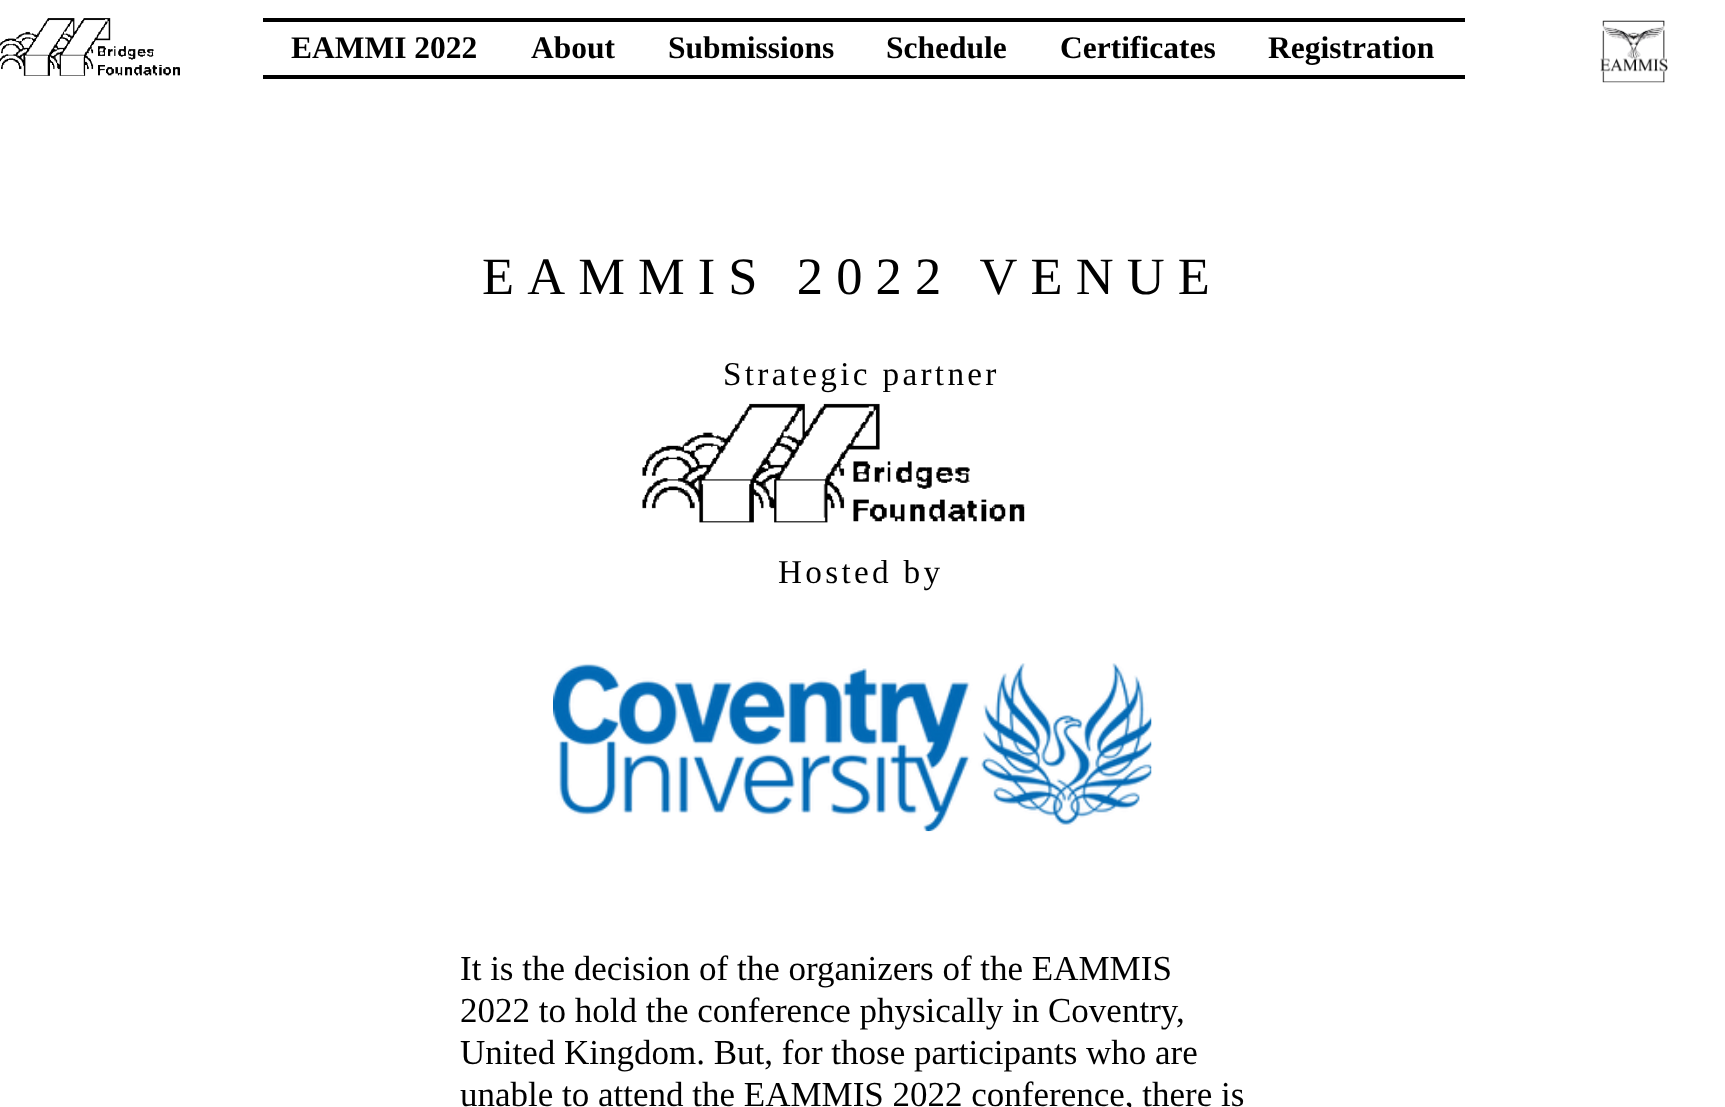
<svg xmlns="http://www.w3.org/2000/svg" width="1725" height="1107">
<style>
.a{font:bold 31.5px Liberation Serif;fill:#000}
.b{font:52.5px Liberation Serif;letter-spacing:13.1px;fill:#000}
.c{font:33.25px Liberation Serif;letter-spacing:3.3px;fill:#000}
.d{font:35px Liberation Serif;fill:#000}
</style>
<rect width="100%" height="100%" fill="#fff"/>
<image href="1.png" x="0" y="18" width="180" height="58"/>
<image href="2.png" x="1600" y="20" width="68" height="63"/>
<path fill="#000" d="M263 18h1202v4H263z"/>
<path fill="#000" d="M263 75h1202v4H263z"/>
<image href="3.png" x="642" y="403" width="383" height="120"/>
<image href="4.png" x="553" y="663" width="599" height="169"/>
<text class="a" x="291" y="58">EAMMI 2022</text>
<text class="a" x="531" y="58">About</text>
<text class="a" x="668" y="58">Submissions</text>
<text class="a" x="886" y="58">Schedule</text>
<text class="a" x="1060" y="58">Certificates</text>
<text class="a" x="1268" y="58">Registration</text>
<text class="b" x="482" y="294">EAMMIS 2022 VENUE</text>
<text class="c" x="723" y="385">Strategic partner</text>
<text class="c" x="778" y="583">Hosted by</text>
<text class="d" x="460" y="980">It is the decision of the organizers of the EAMMIS</text>
<text class="d" x="460" y="1022">2022 to hold the conference physically in Coventry,</text>
<text class="d" x="460" y="1064">United Kingdom. But, for those participants who are</text>
<text class="d" x="460" y="1106">unable to attend the EAMMIS 2022 conference, there is</text>
</svg>
